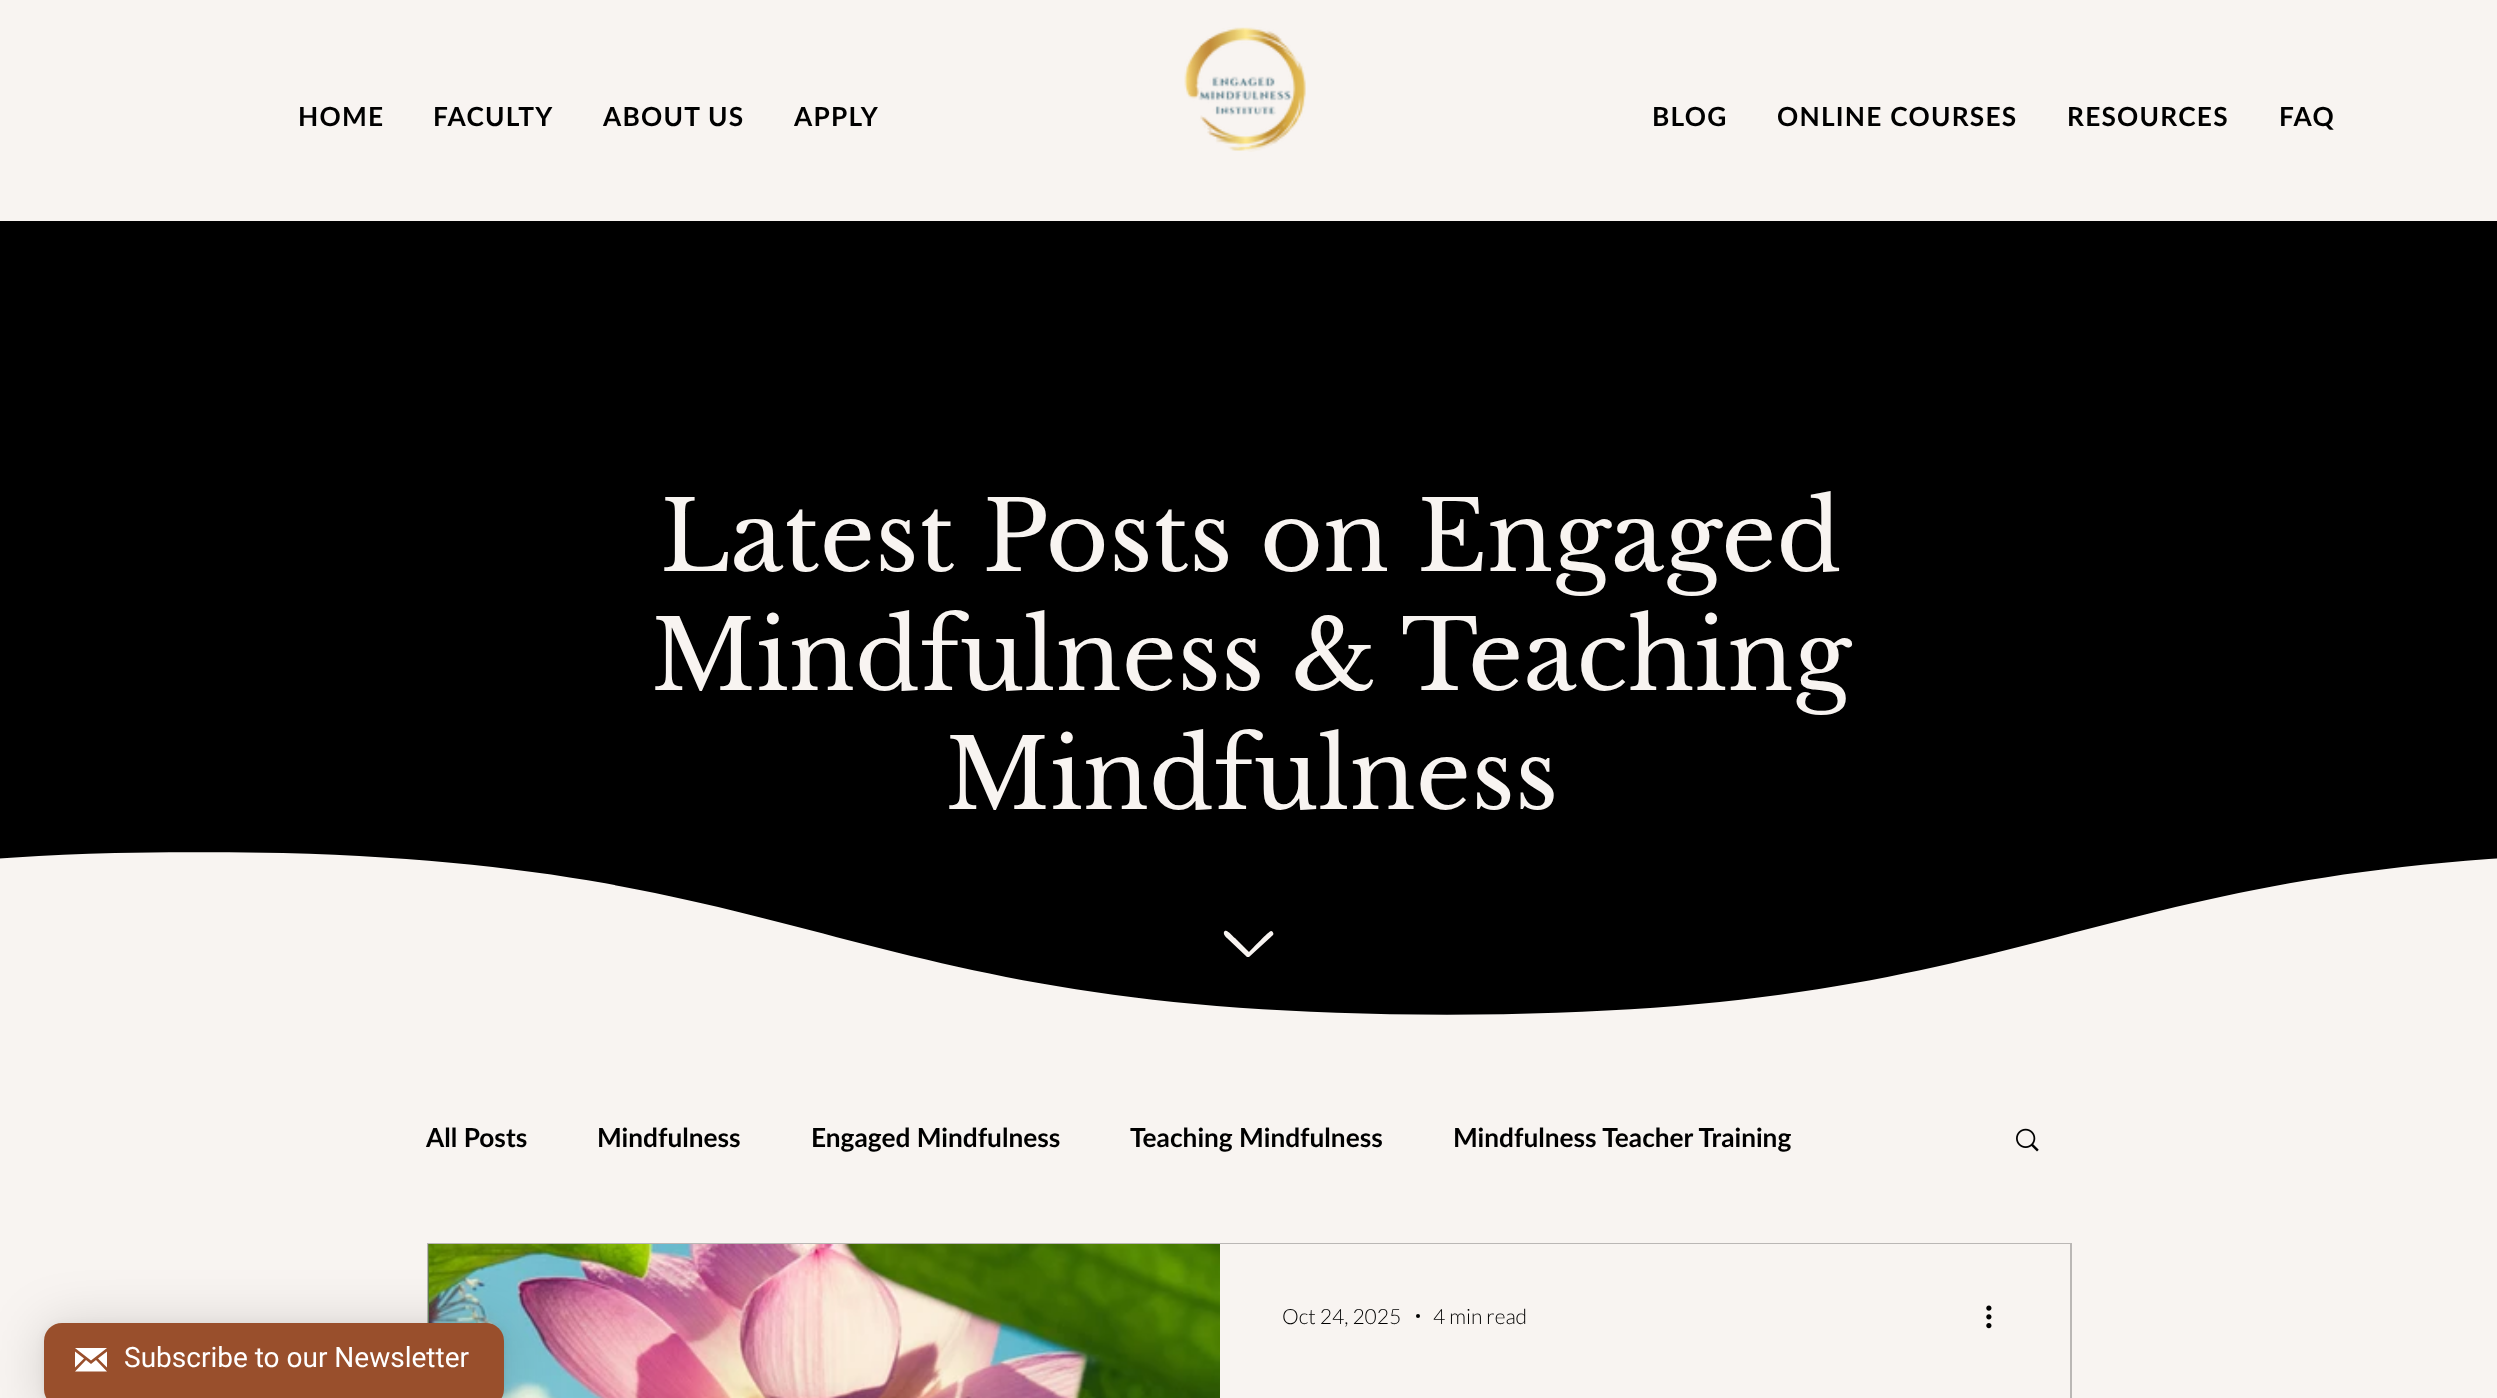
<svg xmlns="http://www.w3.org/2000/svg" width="2497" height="1398">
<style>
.a{font:bold 26.25px Lato;letter-spacing:1.25px;fill:#000}
.b{font:96.25px Libre Baskerville;fill:#f8f4f1}
.c{font:bold 26.25px Lato;fill:#000}
.d{font:300 21px Lato;fill:#000}
.e{font:28px Roboto;fill:#fff}
</style>
<rect width="100%" height="100%" fill="#f8f4f1"/>
<image href="1.png" x="1184" y="27" width="122" height="125"/>
<path fill="#000" d="M0 221h2497v794H0z"/>
<image href="2.png" x="0" y="852" width="2497" height="175"/>
<path fill="#f8f4f1" d="M1271 931c-2 0-19 18-22 21l-14-14c-1 0-9-11-11-6c-1 3 3 6 4 7l19 18h2l24-22c1-1 0-4-2-4z"/>
<image href="3.png" x="2016" y="1128" width="23" height="24"/>
<path fill="none" stroke="#bab7b5" stroke-width="2" d="M428 1244h1643v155H428z"/>
<image href="4.png" x="428" y="1244" width="1" height="79"/>
<image href="5.png" x="429" y="1244" width="791" height="154"/>
<path fill="#f8f4f1" d="M1220 1244h850v1H1220z"/>
<circle fill="#000" cx="1418" cy="1316" r="2"/>
<image href="6.png" x="1986" y="1305" width="6" height="24"/>
<rect fill="#00000029" filter="blur(28px)" x="44" y="1327" width="460" height="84" rx="18"/>
<rect fill="#0000000f" filter="blur(5px)" x="44" y="1325" width="460" height="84" rx="18"/>
<rect fill="#994f2c" x="44" y="1323" width="460" height="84" rx="18"/>
<path fill="#fff" d="M91 1360.5l-16-12.5h32zm-7-2l-9-7v16zm14 0l9 9v-16zm-2 1.5l-5 4l-5-4l-11 11.5h32z"/>
<text class="a" x="298" y="126">HOME</text>
<text class="a" x="433" y="126">FACULTY</text>
<text class="a" x="603" y="126">ABOUT US</text>
<text class="a" x="794" y="126">APPLY</text>
<text class="a" x="1652" y="126">BLOG</text>
<path fill="#f8f4f1" d="M1642 115.5l12.5-14l1.5 1.5l-11 12.5l11 12.5l-1.5 1.5z"/>
<text class="a" x="1777" y="126">ONLINE COURSES</text>
<text class="a" x="2067" y="126">RESOURCES</text>
<text class="a" x="2279" y="126">FAQ</text>
<text class="b" x="660" y="571">Latest Posts on Engaged</text>
<text class="b" x="651" y="690">Mindfulness &amp; Teaching</text>
<text class="b" x="945" y="809">Mindfulness</text>
<text class="c" x="426" y="1147">All Posts</text>
<text class="c" x="597" y="1147">Mindfulness</text>
<text class="c" x="811" y="1147">Engaged Mindfulness</text>
<text class="c" x="1130" y="1147">Teaching Mindfulness</text>
<text class="c" x="1453" y="1147">Mindfulness Teacher Training</text>
<text class="d" x="1282" y="1324">Oct 24, 2025</text>
<text class="d" x="1433" y="1324">4 min read</text>
<text class="e" x="124" y="1367">Subscribe to our Newsletter</text>
</svg>
